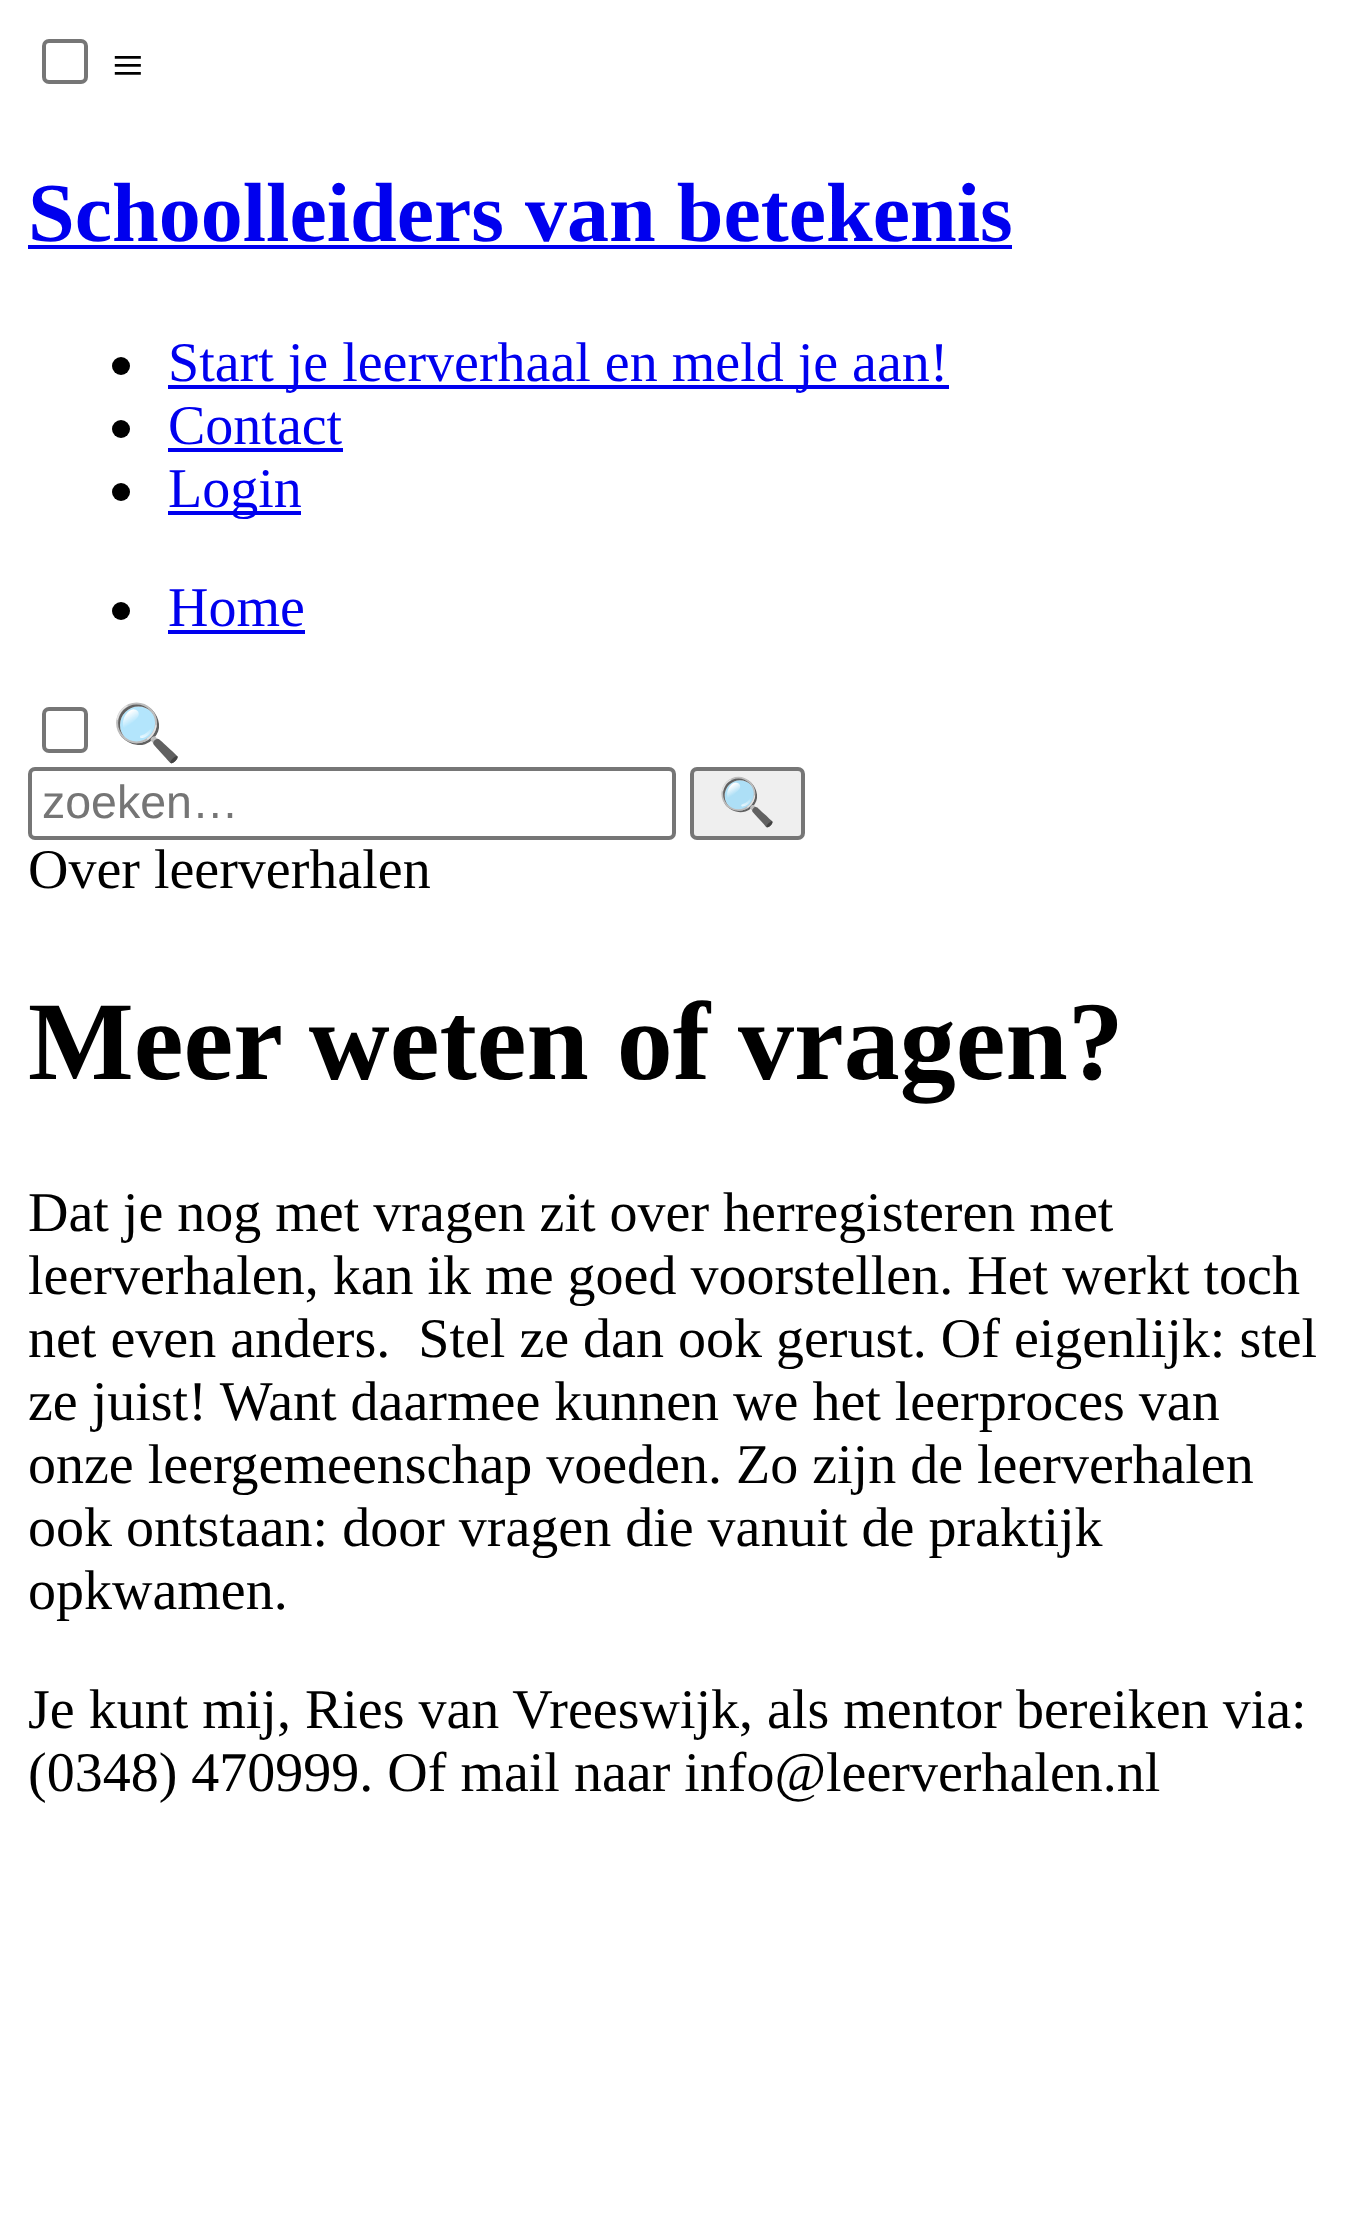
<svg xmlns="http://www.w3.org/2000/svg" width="1355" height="2229">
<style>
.a{font:56px Liberation Serif;fill:#000}
.b{font:bold 84px Liberation Serif;fill:#00e}
.c{font:56px Liberation Serif;fill:#00e}
.d{font:56px Noto Color Emoji;fill:#000}
.e{font:46.5px Liberation Sans;fill:#757575}
.f{font:46.5px Noto Color Emoji;fill:#000}
.g{font:bold 112px Liberation Serif;fill:#000}
</style>
<rect width="100%" height="100%" fill="#fff"/>
<rect fill="none" stroke="#767676" stroke-width="4" x="44" y="41" width="42" height="41" rx="5"/>
<path fill="#00e" d="M28 245h984v4H28z"/>
<circle fill="#000" cx="121" cy="366" r="9"/>
<path fill="#00e" d="M168 385h781v4H168z"/>
<circle fill="#000" cx="121" cy="429" r="9"/>
<path fill="#00e" d="M168 448h175v4H168z"/>
<circle fill="#000" cx="121" cy="492" r="9"/>
<path fill="#00e" d="M168 511h133v4H168z"/>
<circle fill="#000" cx="121" cy="611" r="9"/>
<path fill="#00e" d="M168 630h137v4H168z"/>
<rect fill="none" stroke="#767676" stroke-width="4" x="44" y="709" width="42" height="42" rx="5"/>
<rect fill="none" stroke="#767676" stroke-width="4" x="30" y="769" width="644" height="69" rx="5"/>
<rect fill="#efefef" stroke="#767676" stroke-width="4" x="692" y="769" width="111" height="69" rx="5"/>
<text class="a" x="112" y="84">≡</text>
<text class="b" x="28" y="241">Schoolleiders van betekenis</text>
<text class="c" x="168" y="381">Start je leerverhaal en meld je aan!</text>
<text class="c" x="168" y="444">Contact</text>
<text class="c" x="168" y="507">Login</text>
<text class="c" x="168" y="626">Home</text>
<text class="d" x="112" y="752">🔍</text>
<text class="e" x="42" y="818">zoeken…</text>
<text class="f" x="718" y="818">🔍</text>
<text class="a" x="28" y="888">Over leerverhalen</text>
<text class="g" x="28" y="1079">Meer weten of vragen?</text>
<text class="a" x="28" y="1231">Dat je nog met vragen zit over herregisteren met</text>
<text class="a" x="28" y="1294">leerverhalen, kan ik me goed voorstellen. Het werkt toch</text>
<text class="a" xml:space="preserve" x="28" y="1357">net even anders.  Stel ze dan ook gerust. Of eigenlijk: stel</text>
<text class="a" x="28" y="1420">ze juist! Want daarmee kunnen we het leerproces van</text>
<text class="a" x="28" y="1483">onze leergemeenschap voeden. Zo zijn de leerverhalen</text>
<text class="a" x="28" y="1546">ook ontstaan: door vragen die vanuit de praktijk</text>
<text class="a" x="28" y="1609">opkwamen.</text>
<text class="a" x="28" y="1728">Je kunt mij, Ries van Vreeswijk, als mentor bereiken via:</text>
<text class="a" x="28" y="1791">(0348) 470999. Of mail naar info@leerverhalen.nl</text>
</svg>
